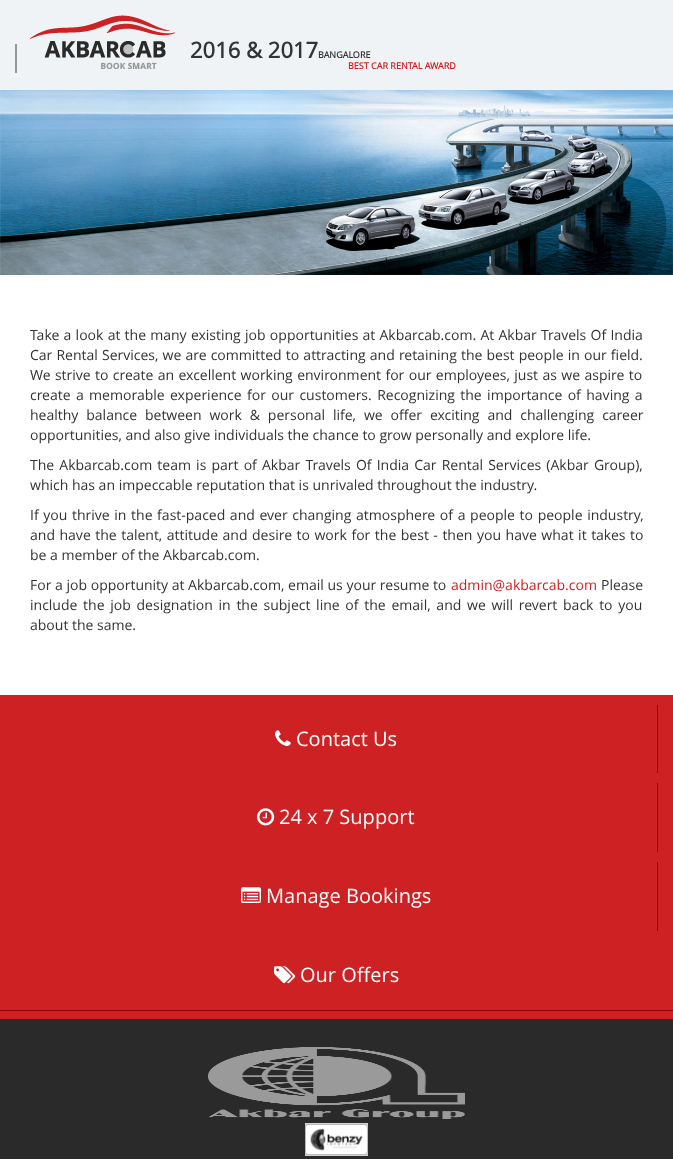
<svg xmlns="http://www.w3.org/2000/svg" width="673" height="1159">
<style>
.a{font:bold 22px Open Sans;fill:#333}
.b{font:bold 9px Open Sans;fill:#333}
.c{font:bold 9px Open Sans;fill:#ce2123}
.d{font:14px Open Sans;fill:#333}
.e{font:14px Open Sans;fill:#ce2123}
.f{font:20px Open Sans;fill:#fff}
</style>
<rect width="100%" height="100%" fill="#f0f3f5"/>
<image href="1.png" x="30" y="15" width="145" height="54"/>
<path fill="#959595" d="M15 44h2v29H15z"/>
<image href="2.png" x="0" y="90" width="673" height="185"/>
<path fill="#fff" d="M0 275h673v420H0z"/>
<path fill="#ce2123" d="M0 695h673v324H0z"/>
<path fill="#91000b" d="M657 705h1v68H657z"/>
<image href="3.png" x="275" y="730" width="16" height="16"/>
<path fill="#91000b" d="M657 783h1v69H657z"/>
<image href="4.png" x="257" y="808" width="18" height="18"/>
<path fill="#91000b" d="M657 862h1v69H657z"/>
<image href="5.png" x="241" y="887" width="20" height="16"/>
<image href="6.png" x="274" y="966" width="22" height="18"/>
<path fill="#91000b" d="M0 1010h673v1H0z"/>
<path fill="#2a2a2a" d="M0 1019h673v140H0z"/>
<image href="7.png" x="208" y="1047" width="257" height="72"/>
<image href="8.png" x="305" y="1123" width="63" height="33"/>
<text class="a" x="190" y="58">2016 &amp; 2017</text>
<text class="b" x="318" y="58">BANGALORE</text>
<text class="c" x="348" y="69">BEST CAR RENTAL AWARD</text>
<text class="d" x="30" y="340" word-spacing="0.6">Take a look at the many existing job opportunities at Akbarcab.com. At Akbar Travels Of India</text>
<text class="d" x="30" y="360" word-spacing="0.5">Car Rental Services, we are committed to attracting and retaining the best people in our field.</text>
<text class="d" x="30" y="380" word-spacing="0.75">We strive to create an excellent working environment for our employees, just as we aspire to</text>
<text class="d" x="30" y="400" word-spacing="1.75">create a memorable experience for our customers. Recognizing the importance of having a</text>
<text class="d" x="30" y="420" word-spacing="4.25">healthy balance between work &amp; personal life, we offer exciting and challenging career</text>
<text class="d" x="30" y="440">opportunities, and also give individuals the chance to grow personally and explore life.</text>
<text class="d" x="30" y="470" word-spacing="1.5">The Akbarcab.com team is part of Akbar Travels Of India Car Rental Services (Akbar Group),</text>
<text class="d" x="30" y="490">which has an impeccable reputation that is unrivaled throughout the industry.</text>
<text class="d" x="30" y="520" word-spacing="1">If you thrive in the fast-paced and ever changing atmosphere of a people to people industry,</text>
<text class="d" x="30" y="540" word-spacing="0.9">and have the talent, attitude and desire to work for the best - then you have what it takes to</text>
<text class="d" x="30" y="560">be a member of the Akbarcab.com.</text>
<text class="d" x="30" y="590">For a job opportunity at Akbarcab.com, email us your resume to</text>
<text class="e" x="451" y="590">admin@akbarcab.com</text>
<text class="d" x="601" y="590">Please</text>
<text class="d" x="30" y="610" word-spacing="2.1">include the job designation in the subject line of the email, and we will revert back to you</text>
<text class="d" x="30" y="630">about the same.</text>
<text class="f" x="296" y="746">Contact Us</text>
<text class="f" x="279" y="824">24 x 7 Support</text>
<text class="f" x="266" y="903">Manage Bookings</text>
<text class="f" x="300" y="982">Our Offers</text>
</svg>
